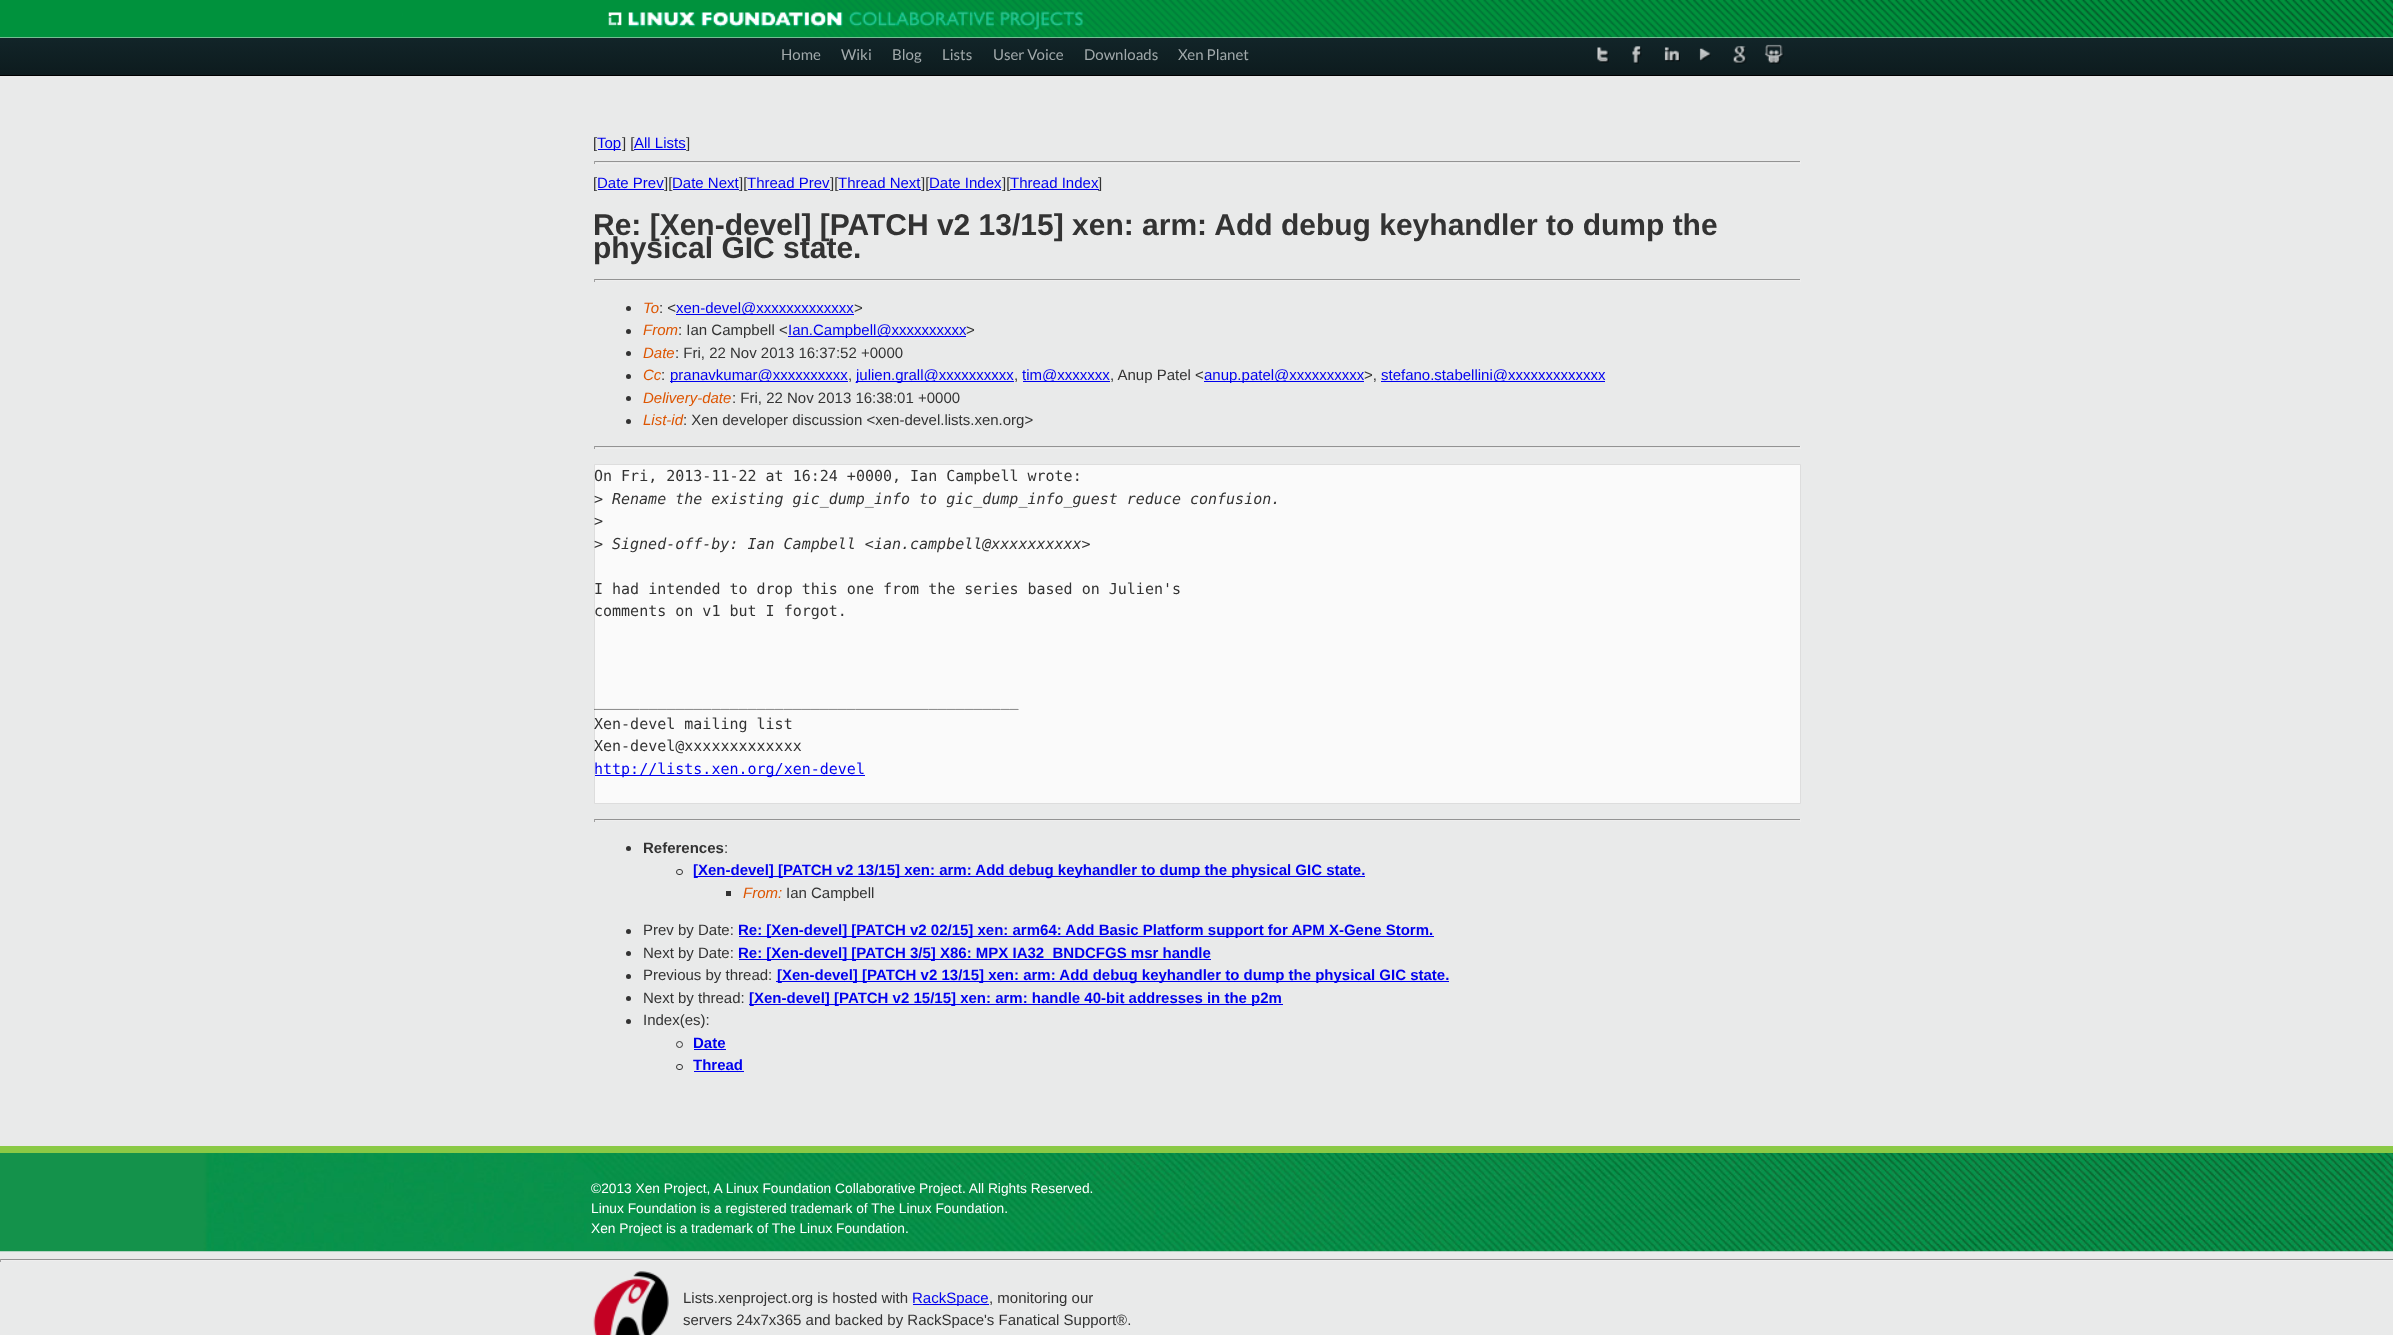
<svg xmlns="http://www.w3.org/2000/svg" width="2393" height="1335">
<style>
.a{font:15px Lato;fill:#a1a9ab}
.b{font:15px Liberation Sans;fill:#333}
.c{font:15px Liberation Sans;fill:#00e}
.d{font:bold 30px Liberation Sans;fill:#333}
.e{font:italic 15px Liberation Sans;fill:#d50}
.f{font:15px DejaVu Sans Mono;fill:#333}
.g{font:italic 15px DejaVu Sans Mono;fill:#333}
.h{font:15px DejaVu Sans Mono;fill:#00e}
.i{font:bold 15px Liberation Sans;fill:#333}
.j{font:bold 15px Liberation Sans;fill:#00e}
.k{font:13.75px Liberation Sans;fill:#fff}
</style>
<defs>
<linearGradient id="g1" gradientUnits="userSpaceOnUse" x1="1197" y1="37" x2="1197" y2="75"><stop offset="0" stop-color="#122529"/><stop offset="1" stop-color="#0d1b1e"/></linearGradient>
</defs>
<rect width="100%" height="100%" fill="#e9eaea"/>
<image href="1.png" x="0" y="0" width="2393" height="38"/>
<image href="2.png" x="608" y="11" width="475" height="19"/>
<path fill="url(#g1)" d="M0 38h2393v37H0z"/>
<path fill="#000" d="M0 75h2393v1H0z"/>
<image href="3.png" x="1597" y="47" width="12" height="16"/>
<image href="4.png" x="1632" y="46" width="10" height="18"/>
<image href="5.png" x="1664" y="47" width="16" height="15"/>
<image href="6.png" x="1699" y="48" width="12" height="13"/>
<image href="7.png" x="1733" y="46" width="14" height="18"/>
<image href="8.png" x="1764" y="44" width="20" height="20"/>
<path fill="#00e" d="M598 149h23v1H598z"/>
<path fill="#00e" d="M634 149h52v1H634z"/>
<path fill="#939393" d="M594 161h1207v1H594z"/>
<path fill="#eee" d="M1800 161h1v3H1800z"/>
<path fill="#eee" d="M594 163h1207v1H594z"/>
<path fill="#9f9f9f" d="M594 161h1v3H594z"/>
<path fill="#00e" d="M598 189h66v1H598z"/>
<path fill="#00e" d="M673 189h66v1H673z"/>
<path fill="#00e" d="M748 189h82v1H748z"/>
<path fill="#00e" d="M839 189h82v1H839z"/>
<path fill="#00e" d="M1010 189h89v1H1010z"/>
<path fill="#939393" d="M594 279h1207v1H594z"/>
<path fill="#eee" d="M1800 279h1v3H1800z"/>
<path fill="#eee" d="M594 280h1207v1H594z"/>
<path fill="#9f9f9f" d="M594 279h1v3H594z"/>
<circle fill="#333" cx="628.5" cy="308.5" r="2.5"/>
<path fill="#00e" d="M676 314h178v1H676z"/>
<circle fill="#333" cx="628.5" cy="331.5" r="2.5"/>
<path fill="#00e" d="M788 336h178v1H788z"/>
<circle fill="#333" cx="628.5" cy="353.5" r="2.5"/>
<circle fill="#333" cx="628.5" cy="376.5" r="2.5"/>
<path fill="#00e" d="M670 381h178v1H670z"/>
<path fill="#00e" d="M856 381h158v1H856z"/>
<path fill="#00e" d="M1023 381h87v1H1023z"/>
<path fill="#00e" d="M1204 381h160v1H1204z"/>
<path fill="#00e" d="M1381 381h224v1H1381z"/>
<circle fill="#333" cx="628.5" cy="398.5" r="2.5"/>
<circle fill="#333" cx="628.5" cy="421.5" r="2.5"/>
<path fill="#939393" d="M594 446h1207v1H594z"/>
<path fill="#eee" d="M1800 446h1v3H1800z"/>
<path fill="#eee" d="M594 448h1207v1H594z"/>
<path fill="#9f9f9f" d="M594 446h1v3H594z"/>
<path fill="#fafafa" stroke="#ddd" d="M594.5 464.5h1206v339H594.5z"/>
<path fill="#00e" d="M595 775h270v1H595z"/>
<path fill="#939393" d="M594 819h1207v1H594z"/>
<path fill="#eee" d="M1800 819h1v3H1800z"/>
<path fill="#eee" d="M594 820h1207v1H594z"/>
<path fill="#9f9f9f" d="M594 819h1v3H594z"/>
<circle fill="#333" cx="628.5" cy="848.5" r="2.5"/>
<rect fill="none" stroke="#333" x="676.5" y="869.5" width="6" height="5" rx="2.5"/>
<path fill="#00e" d="M694 876h671v1H694z"/>
<path fill="#333" d="M726 891h5v5H726z"/>
<circle fill="#333" cx="628.5" cy="931.5" r="2.5"/>
<path fill="#00e" d="M739 936h695v1H739z"/>
<circle fill="#333" cx="628.5" cy="953.5" r="2.5"/>
<path fill="#00e" d="M739 959h472v1H739z"/>
<circle fill="#333" cx="628.5" cy="976.5" r="2.5"/>
<path fill="#00e" d="M776 981h673v1H776z"/>
<circle fill="#333" cx="628.5" cy="998.5" r="2.5"/>
<path fill="#00e" d="M749 1004h534v1H749z"/>
<circle fill="#333" cx="628.5" cy="1021.5" r="2.5"/>
<circle fill="none" stroke="#333" cx="679.5" cy="1044.5" r="3"/>
<path fill="#00e" d="M694 1049h32v1H694z"/>
<rect fill="none" stroke="#333" x="676.5" y="1064.5" width="6" height="5" rx="2.5"/>
<path fill="#00e" d="M694 1071h50v1H694z"/>
<image href="9.png" x="0" y="1153" width="2393" height="99"/>
<path fill="#8ac945" d="M0 1146h2393v7H0z"/>
<path fill="#939393" d="M0 1259h2393v1H0z"/>
<path fill="#eee" d="M0 1260h2393v1H0z"/>
<path fill="#9f9f9f" d="M0 1259h1v3H0z"/>
<image href="10.png" x="593" y="1271" width="76" height="64"/>
<path fill="#00e" d="M913 1304h76v1H913z"/>
<text class="a" x="781" y="60">Home</text>
<text class="a" x="841" y="60">Wiki</text>
<text class="a" x="892" y="60">Blog</text>
<text class="a" x="942" y="60">Lists</text>
<text class="a" x="993" y="60">User Voice</text>
<text class="a" x="1084" y="60">Downloads</text>
<text class="a" x="1178" y="60">Xen Planet</text>
<text class="b" x="593" y="148">[</text>
<text class="c" x="597" y="148">Top</text>
<text class="b" x="622" y="148">] [</text>
<text class="c" x="634" y="148">All Lists</text>
<text class="b" x="686" y="148">]</text>
<text class="b" x="593" y="188">[</text>
<text class="c" x="597" y="188">Date Prev</text>
<text class="b" x="664" y="188">][</text>
<text class="c" x="672" y="188">Date Next</text>
<text class="b" x="739" y="188">][</text>
<text class="c" x="747" y="188">Thread Prev</text>
<text class="b" x="830" y="188">][</text>
<text class="c" x="838" y="188">Thread Next</text>
<text class="b" x="921" y="188">][</text>
<text class="c" x="929" y="188">Date Index</text>
<path fill="#00e" d="M929 189h72v1H929z"/>
<text class="b" x="1002" y="188">][</text>
<text class="c" x="1010" y="188">Thread Index</text>
<text class="b" x="1098" y="188">]</text>
<text class="d" x="593" y="235">Re: [Xen-devel] [PATCH v2 13/15] xen: arm: Add debug keyhandler to dump the</text>
<text class="d" x="593" y="258">physical GIC state.</text>
<text class="e" x="643" y="313">To</text>
<text class="b" x="659" y="313">: &lt;</text>
<text class="c" x="676" y="313">xen-devel@xxxxxxxxxxxxx</text>
<text class="b" x="854" y="313">&gt;</text>
<text class="e" x="643" y="335">From</text>
<text class="b" x="678" y="335">: Ian Campbell &lt;</text>
<text class="c" x="788" y="335">Ian.Campbell@xxxxxxxxxx</text>
<text class="b" x="966" y="335">&gt;</text>
<text class="e" x="643" y="358">Date</text>
<text class="b" x="675" y="358">: Fri, 22 Nov 2013 16:37:52 +0000</text>
<text class="e" x="643" y="380">Cc</text>
<text class="b" x="661" y="380">:</text>
<text class="c" x="670" y="380">pranavkumar@xxxxxxxxxx</text>
<text class="c" x="856" y="380">julien.grall@xxxxxxxxxx</text>
<text class="c" x="1022" y="380">tim@xxxxxxx</text>
<text class="b" x="1110" y="380">, Anup Patel &lt;</text>
<text class="c" x="1204" y="380">anup.patel@xxxxxxxxxx</text>
<text class="b" x="1364" y="380">&gt;,</text>
<text class="c" x="1381" y="380">stefano.stabellini@xxxxxxxxxxxxx</text>
<text class="b" x="848" y="380">,</text>
<text class="b" x="1014" y="380">,</text>
<text class="e" x="643" y="403">Delivery-date</text>
<text class="b" x="732" y="403">: Fri, 22 Nov 2013 16:38:01 +0000</text>
<text class="e" x="643" y="425">List-id</text>
<text class="b" x="683" y="425">: Xen developer discussion &lt;xen-devel.lists.xen.org&gt;</text>
<text class="f" x="594" y="481">On Fri, 2013-11-22 at 16:24 +0000, Ian Campbell wrote:</text>
<text class="f" x="594" y="504">&gt;</text>
<text class="g" x="612" y="504">Rename the existing gic_dump_info to gic_dump_info_guest reduce confusion.</text>
<text class="f" x="594" y="526">&gt;</text>
<text class="f" x="594" y="549">&gt;</text>
<text class="g" x="612" y="549">Signed-off-by: Ian Campbell &lt;ian.campbell@xxxxxxxxxx&gt;</text>
<text class="f" x="594" y="594">I had intended to drop this one from the series based on Julien's</text>
<text class="f" x="594" y="616">comments on v1 but I forgot.</text>
<text class="f" x="594" y="706">_______________________________________________</text>
<text class="f" x="594" y="729">Xen-devel mailing list</text>
<text class="f" x="594" y="751">Xen-devel@xxxxxxxxxxxxx</text>
<text class="h" x="594" y="774">http://lists.xen.org/xen-devel</text>
<text class="i" x="643" y="853">References</text>
<text class="b" x="724" y="853">:</text>
<text class="j" x="693" y="875">[Xen-devel] [PATCH v2 13/15] xen: arm: Add debug keyhandler to dump the physical GIC state.</text>
<text class="e" x="743" y="898">From:</text>
<text class="b" x="786" y="898">Ian Campbell</text>
<text class="b" x="643" y="935">Prev by Date:</text>
<text class="j" x="738" y="935">Re: [Xen-devel] [PATCH v2 02/15] xen: arm64: Add Basic Platform support for APM X-Gene Storm.</text>
<text class="b" x="643" y="958">Next by Date:</text>
<text class="j" x="738" y="958">Re: [Xen-devel] [PATCH 3/5] X86: MPX IA32_BNDCFGS msr handle</text>
<text class="b" x="643" y="980">Previous by thread:</text>
<text class="j" x="777" y="980">[Xen-devel] [PATCH v2 13/15] xen: arm: Add debug keyhandler to dump the physical GIC state.</text>
<text class="b" x="643" y="1003">Next by thread:</text>
<text class="j" x="749" y="1003">[Xen-devel] [PATCH v2 15/15] xen: arm: handle 40-bit addresses in the p2m</text>
<text class="b" x="643" y="1025">Index(es):</text>
<text class="j" x="693" y="1048">Date</text>
<text class="j" x="693" y="1070">Thread</text>
<text class="k" x="591" y="1193">©2013 Xen Project, A Linux Foundation Collaborative Project. All Rights Reserved.</text>
<text class="k" x="591" y="1213">Linux Foundation is a registered trademark of The Linux Foundation.</text>
<text class="k" x="591" y="1233">Xen Project is a trademark of The Linux Foundation.</text>
<text class="b" x="683" y="1303">Lists.xenproject.org is hosted with</text>
<text class="c" x="912" y="1303">RackSpace</text>
<text class="b" x="989" y="1303">, monitoring our</text>
<text class="b" x="683" y="1325">servers 24x7x365 and backed by RackSpace's Fanatical Support®.</text>
</svg>
